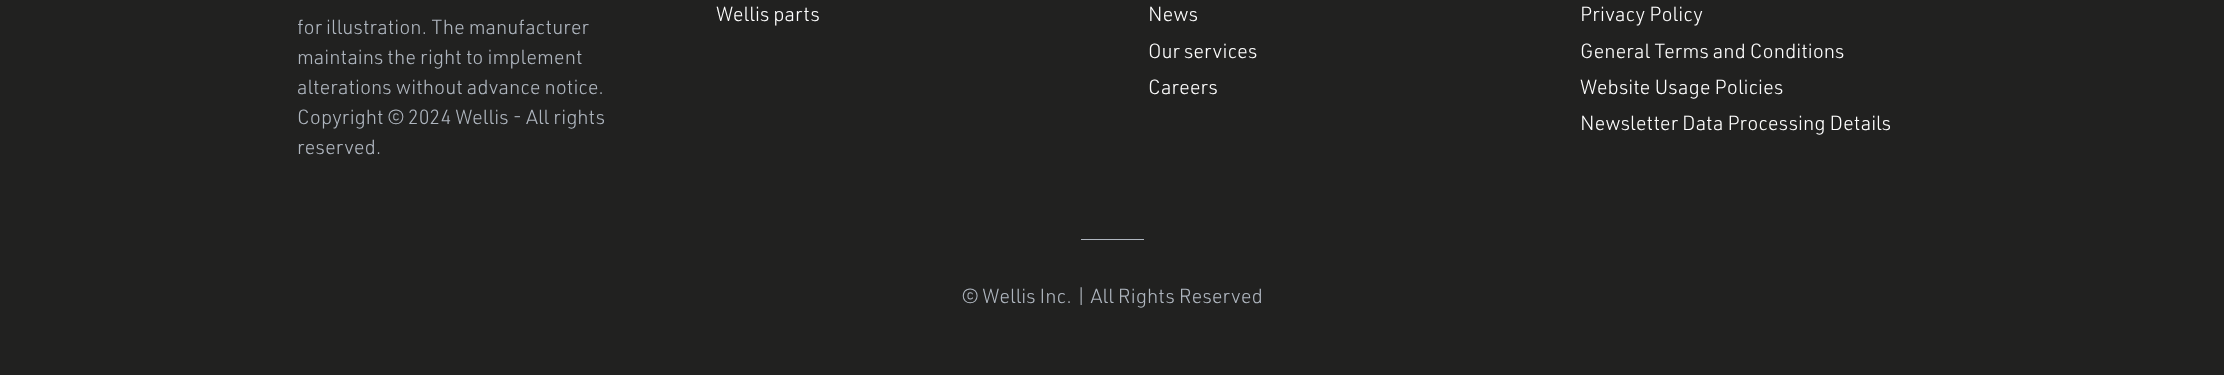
<svg xmlns="http://www.w3.org/2000/svg" width="2224" height="375">
<style>
.a{font:20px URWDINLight;fill:#afb6bf}
.b{font:20px URWDINLight;fill:#fff}
</style>
<rect width="100%" height="100%" fill="#212120"/>
<path fill="#afb6bf" d="M1081 239h63v1H1081z"/>
<text class="a" x="297" y="34">for illustration. The manufacturer</text>
<text class="a" x="297" y="64">maintains the right to implement</text>
<text class="a" x="297" y="94">alterations without advance notice.</text>
<text class="a" x="297" y="124">Copyright © 2024 Wellis - All rights</text>
<text class="a" x="297" y="154">reserved.</text>
<text class="b" x="716" y="21">Wellis parts</text>
<text class="b" x="1148" y="21">News</text>
<text class="b" x="1148" y="58">Our services</text>
<text class="b" x="1148" y="94">Careers</text>
<text class="b" x="1580" y="21">Privacy Policy</text>
<text class="b" x="1580" y="58">General Terms and Conditions</text>
<text class="b" x="1580" y="94">Website Usage Policies</text>
<text class="b" x="1580" y="130">Newsletter Data Processing Details</text>
<text class="a" x="962" y="303">© Wellis Inc. | All Rights Reserved</text>
</svg>
